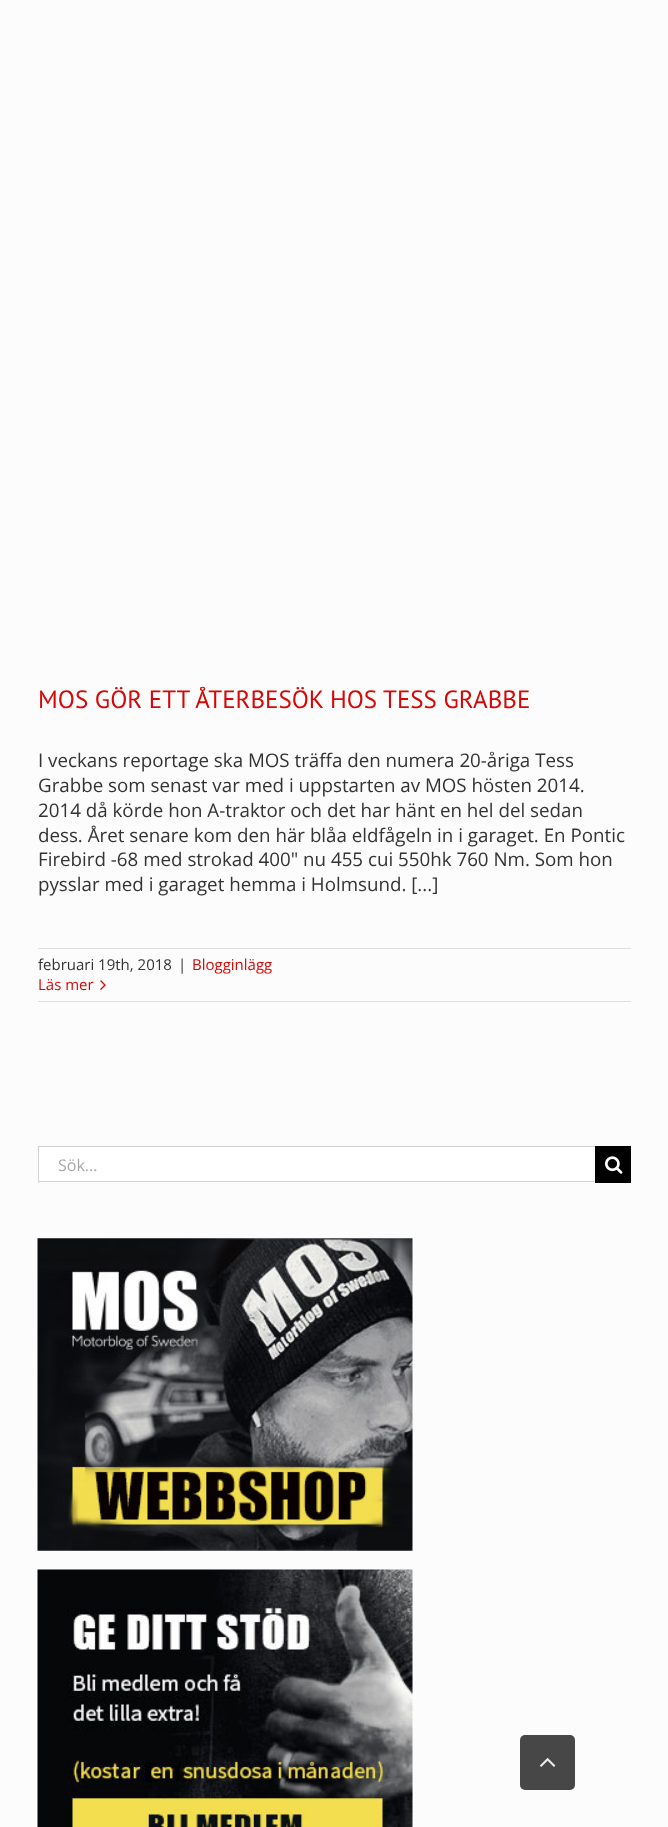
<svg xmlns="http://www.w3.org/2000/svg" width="668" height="1827">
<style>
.a{font:25px PT Sans;fill:#d60707}
.b{font:18.75px Open Sans;fill:#333}
.c{font:15px Open Sans;fill:#333}
.d{font:15px Open Sans;fill:#d60707}
.e{font:16px Open Sans;fill:#aaa9a9}
</style>
<rect width="100%" height="100%" fill="#fcfcfc"/>
<path fill="#e0dede" d="M38 948h593v1H38z"/>
<path fill="#e0dede" d="M38 1001h593v1H38z"/>
<image href="1.png" x="100" y="980" width="6" height="10"/>
<path fill="#fff" d="M39 1147h556v36H39z"/>
<path fill="#d2d2d2" d="M38 1146h557v1H38z"/>
<path fill="#d2d2d2" d="M38 1181h557v1H38z"/>
<path fill="#d2d2d2" d="M38 1146h1v37H38z"/>
<path fill="#000" d="M595 1146h36v37H595z"/>
<image href="2.png" x="605" y="1156" width="18" height="18"/>
<image href="3.png" x="37" y="1238" width="376" height="313"/>
<image href="4.png" x="37" y="1569" width="376" height="258"/>
<rect fill="#474747" x="520" y="1735" width="55" height="55" rx="5"/>
<image href="5.png" x="540" y="1758" width="16" height="9"/>
<text class="a" x="38" y="708">MOS GÖR ETT ÅTERBESÖK HOS TESS GRABBE</text>
<text class="b" x="38" y="767">I veckans reportage ska MOS träffa den numera 20-åriga Tess</text>
<text class="b" x="38" y="792">Grabbe som senast var med i uppstarten av MOS hösten 2014.</text>
<text class="b" x="38" y="817">2014 då körde hon A-traktor och det har hänt en hel del sedan</text>
<text class="b" x="38" y="842">dess. Året senare kom den här blåa eldfågeln in i garaget. En Pontic</text>
<text class="b" x="38" y="866">Firebird -68 med strokad 400" nu 455 cui 550hk 760 Nm. Som hon</text>
<text class="b" x="38" y="891">pysslar med i garaget hemma i Holmsund. [...]</text>
<text class="c" x="38" y="970">februari 19th, 2018</text>
<text class="c" x="178" y="970">|</text>
<text class="d" x="192" y="970">Blogginlägg</text>
<text class="d" x="38" y="990">Läs mer</text>
<text class="e" x="58" y="1171">Sök...</text>
</svg>
